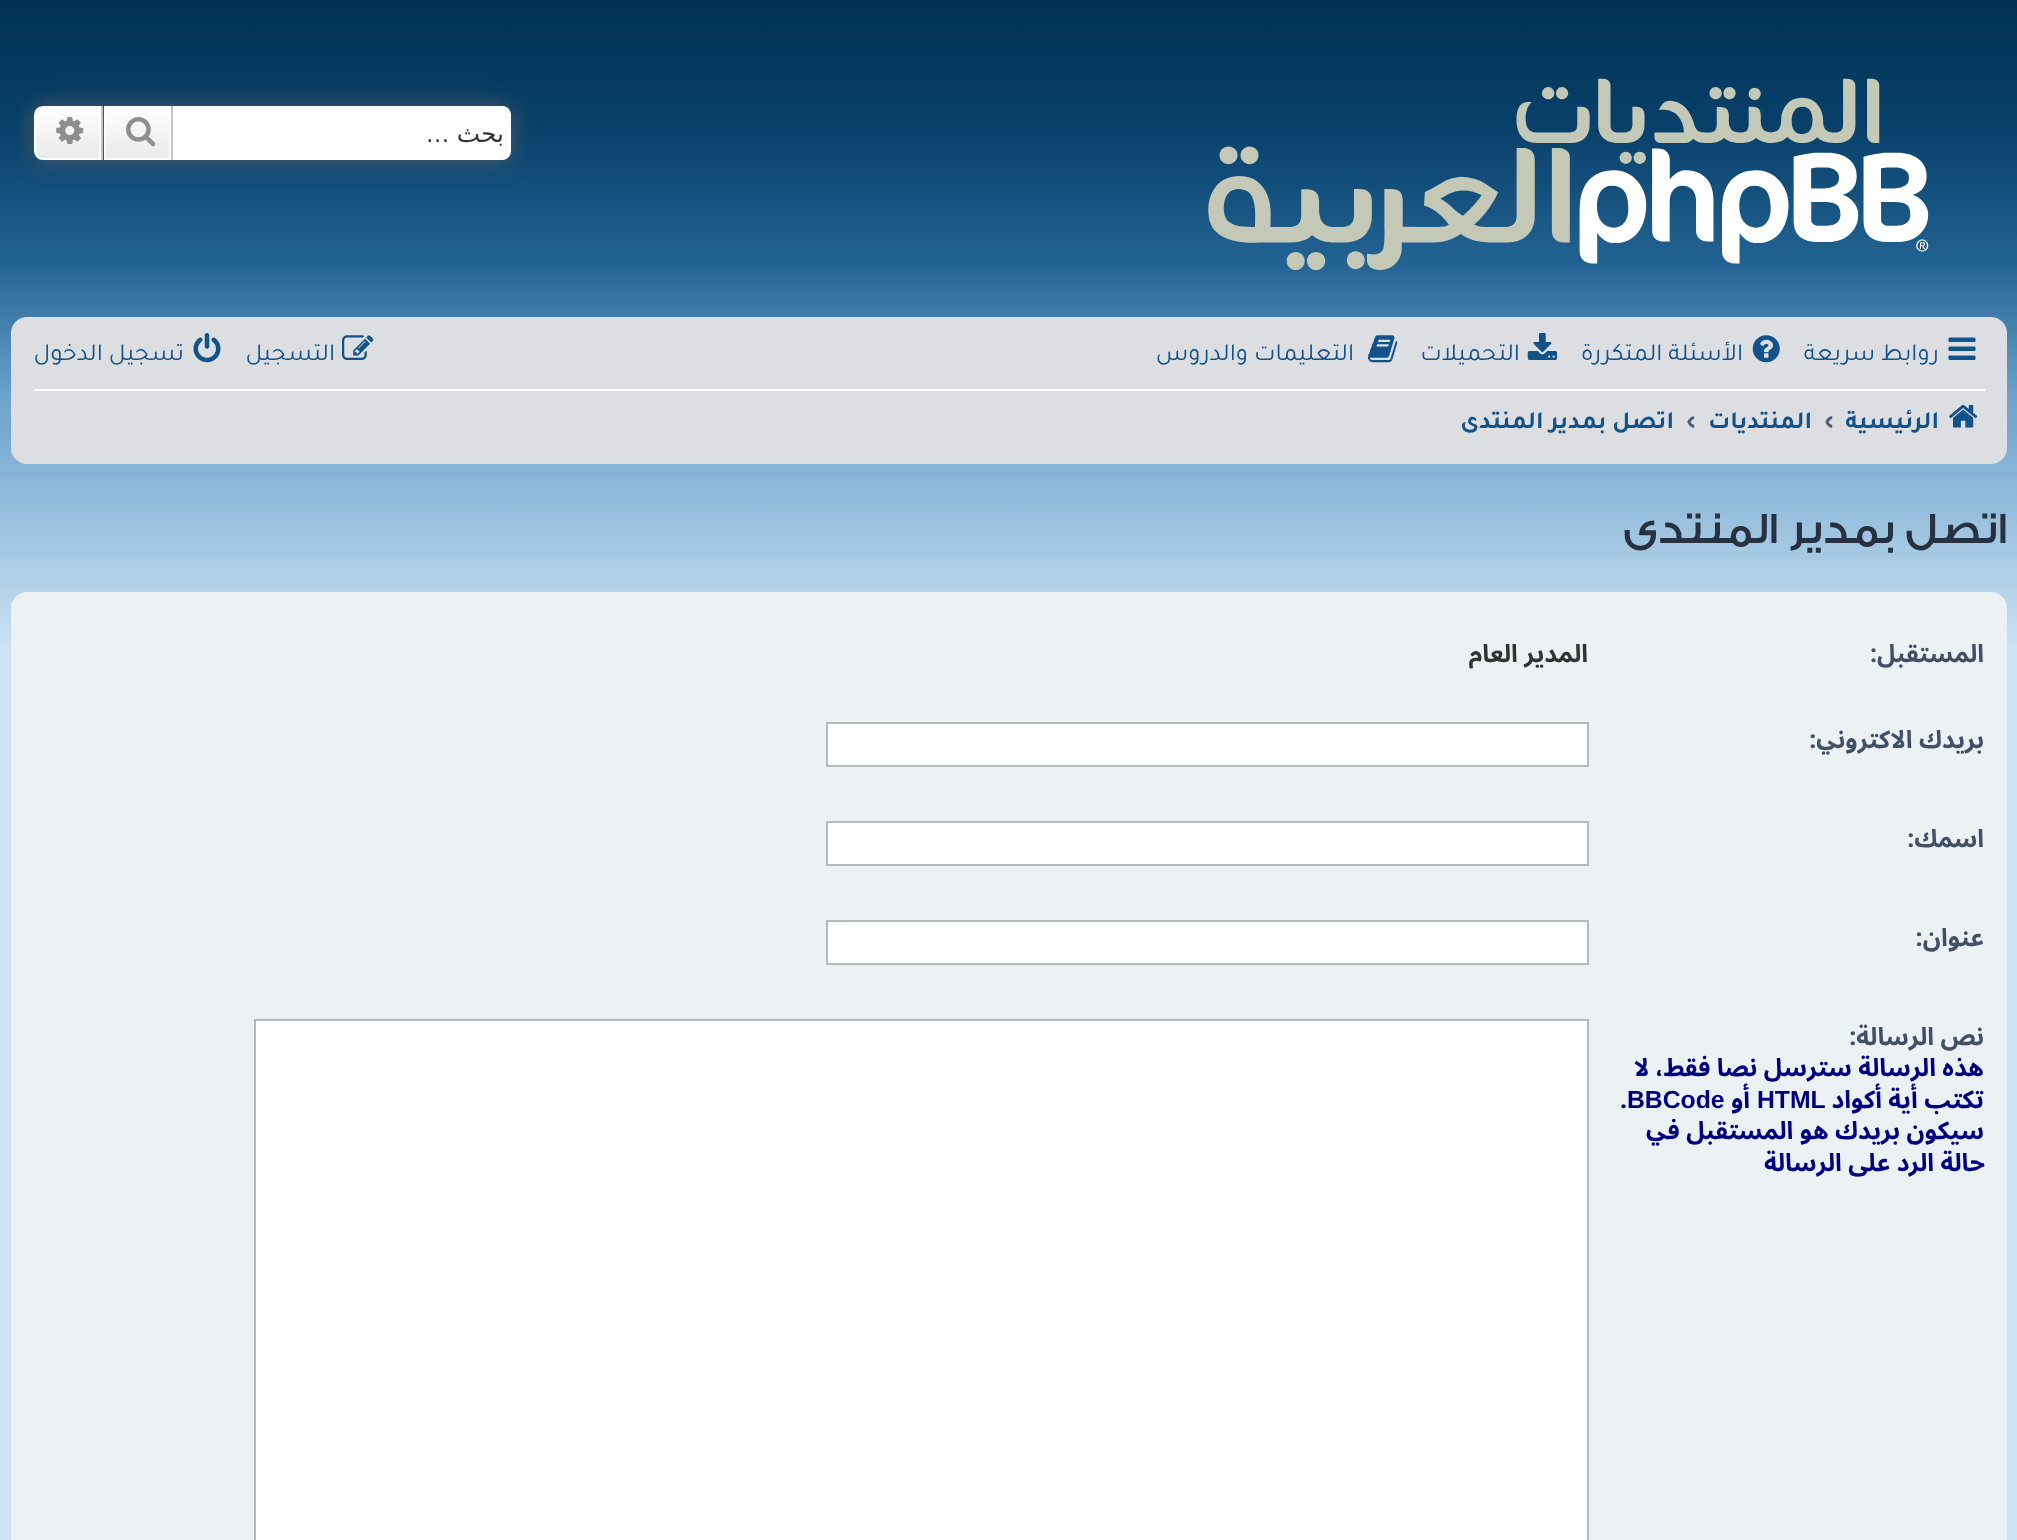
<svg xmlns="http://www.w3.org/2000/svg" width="2017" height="1540">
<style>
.a{font:24.75px DejaVu Sans;direction:rtl;fill:#333}
.b{font:24.75px Liberation Sans;direction:rtl;fill:#333}
.c{font:24.75px Tajawal;direction:rtl;fill:#105289}
.d{font:bold 24.75px Tajawal;direction:rtl;fill:#105289}
.e{font:bold 24.75px Tajawal;fill:#505f79}
.f{font:500 45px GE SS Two;direction:rtl;fill:#28313f}
.g{font:bold 24.75px Noto Sans Arabic UI;direction:rtl;fill:#425067}
.h{font:bold 24.75px Noto Sans Arabic UI;direction:rtl;fill:#333}
.i{font:bold 24.75px Noto Sans Arabic UI;direction:rtl;fill:#000080}
.j{font:bold 24.75px Liberation Sans;fill:#000080}
.k{font:bold 24.75px Noto Sans Arabic UI;fill:#000080}
</style>
<defs>
<linearGradient id="g1" gradientUnits="userSpaceOnUse" x1="1009" y1="0" x2="1009" y2="653"><stop offset="0" stop-color="#003153"/><stop offset="0.2" stop-color="#09416b"/><stop offset="0.4" stop-color="#226292"/><stop offset="0.6" stop-color="#69a0ca"/><stop offset="1" stop-color="#cce3f3"/></linearGradient>
<linearGradient id="g2" gradientUnits="userSpaceOnUse" x1="137" y1="106" x2="137" y2="160"><stop offset="0" stop-color="#fff"/><stop offset="1" stop-color="#e9e9e9"/></linearGradient>
<linearGradient id="g3" gradientUnits="userSpaceOnUse" x1="68" y1="106" x2="68" y2="160"><stop offset="0" stop-color="#fff"/><stop offset="1" stop-color="#e9e9e9"/></linearGradient>
</defs>
<rect width="100%" height="100%" fill="#cce3f3"/>
<path fill="url(#g1)" d="M0 0h2017v646H0z"/>
<image href="1.png" x="1208" y="78" width="721" height="192"/>
<rect fill="#505c65" filter="blur(11px)" x="34" y="106" width="477" height="54" rx="9"/>
<path fill="#fff" d="M173 106h329c5 0 9 4 9 9v36c0 5-4 9-9 9h-329z"/>
<path fill="url(#g2)" d="M106 108h63v50H106z"/>
<path fill="none" stroke="#fff" stroke-width="2" d="M105 107h65v52H105z"/>
<path fill="#c7c3bf" d="M171 106h2v54H171z"/>
<path fill="#c7c3bf" d="M101 106h2v54H101z"/>
<image href="2.png" x="126" y="117" width="30" height="30"/>
<path fill="url(#g3)" stroke="#fff" stroke-width="2" d="M43 107h57v52h-57c-4.5 0-8-3.5-8-8v-36c0-4.5 3.5-8 8-8z"/>
<image href="3.png" x="56" y="117" width="28" height="27"/>
<rect fill="#dcdee2" x="11" y="317" width="1996" height="147" rx="16"/>
<image href="4.png" x="1948" y="337" width="28" height="23"/>
<image href="5.png" x="1752" y="335" width="28" height="28"/>
<image href="6.png" x="1527" y="333" width="30" height="27"/>
<image href="7.png" x="1368" y="335" width="30" height="28"/>
<image href="8.png" x="342" y="335" width="32" height="25"/>
<image href="9.png" x="193" y="333" width="28" height="30"/>
<path fill="#fff" d="M34 389h1951v2H34z"/>
<image href="10.png" x="1949" y="405" width="29" height="23"/>
<rect fill="#ecf1f3" x="11" y="592" width="1996" height="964" rx="16"/>
<path fill="#fff" stroke="#b4bac0" stroke-width="2" d="M827 723h761v43H827z"/>
<path fill="#fff" stroke="#b4bac0" stroke-width="2" d="M827 822h761v43H827z"/>
<path fill="#fff" stroke="#b4bac0" stroke-width="2" d="M827 921h761v43H827z"/>
<path fill="#fff" stroke="#b4bac0" stroke-width="2" d="M255 1020h1333v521H255z"/>
<text class="a" x="504" y="142">بحث</text>
<text class="b" x="450" y="142">…</text>
<text class="c" x="1939" y="360">روابط سريعة</text>
<text class="c" x="1743" y="360">الأسئلة المتكررة</text>
<text class="c" x="1520" y="360">التحميلات</text>
<text class="c" x="1354" y="360">التعليمات والدروس</text>
<text class="c" x="335" y="360">التسجيل</text>
<text class="c" x="184" y="360">تسجيل الدخول</text>
<text class="d" x="1939" y="428">الرئيسية</text>
<text class="e" x="1824" y="428">‹</text>
<text class="d" x="1812" y="428">المنتديات</text>
<text class="e" x="1686" y="428">‹</text>
<text class="d" x="1674" y="428">اتصل بمدير المنتدى</text>
<text class="f" x="2007" y="543">اتصل بمدير المنتدى</text>
<text class="g" x="1984" y="662">المستقبل:</text>
<text class="h" x="1588" y="662">المدير العام</text>
<text class="g" x="1984" y="748">بريدك الاكتروني:</text>
<text class="g" x="1984" y="847">اسمك:</text>
<text class="g" x="1984" y="946">عنوان:</text>
<text class="g" x="1984" y="1045">نص الرسالة:</text>
<text class="i" x="1984" y="1076">هذه الرسالة سترسل نصا فقط، لا</text>
<text class="i" x="1984" y="1108">تكتب أية أكواد</text>
<text class="j" x="1757" y="1108">HTML</text>
<text class="i" x="1750" y="1108">أو</text>
<text class="j" x="1627" y="1108">BBCode</text>
<text class="k" x="1620" y="1108">.</text>
<text class="i" x="1984" y="1139">سيكون بريدك هو المستقبل في</text>
<text class="i" x="1985" y="1171">حالة الرد على الرسالة</text>
</svg>
